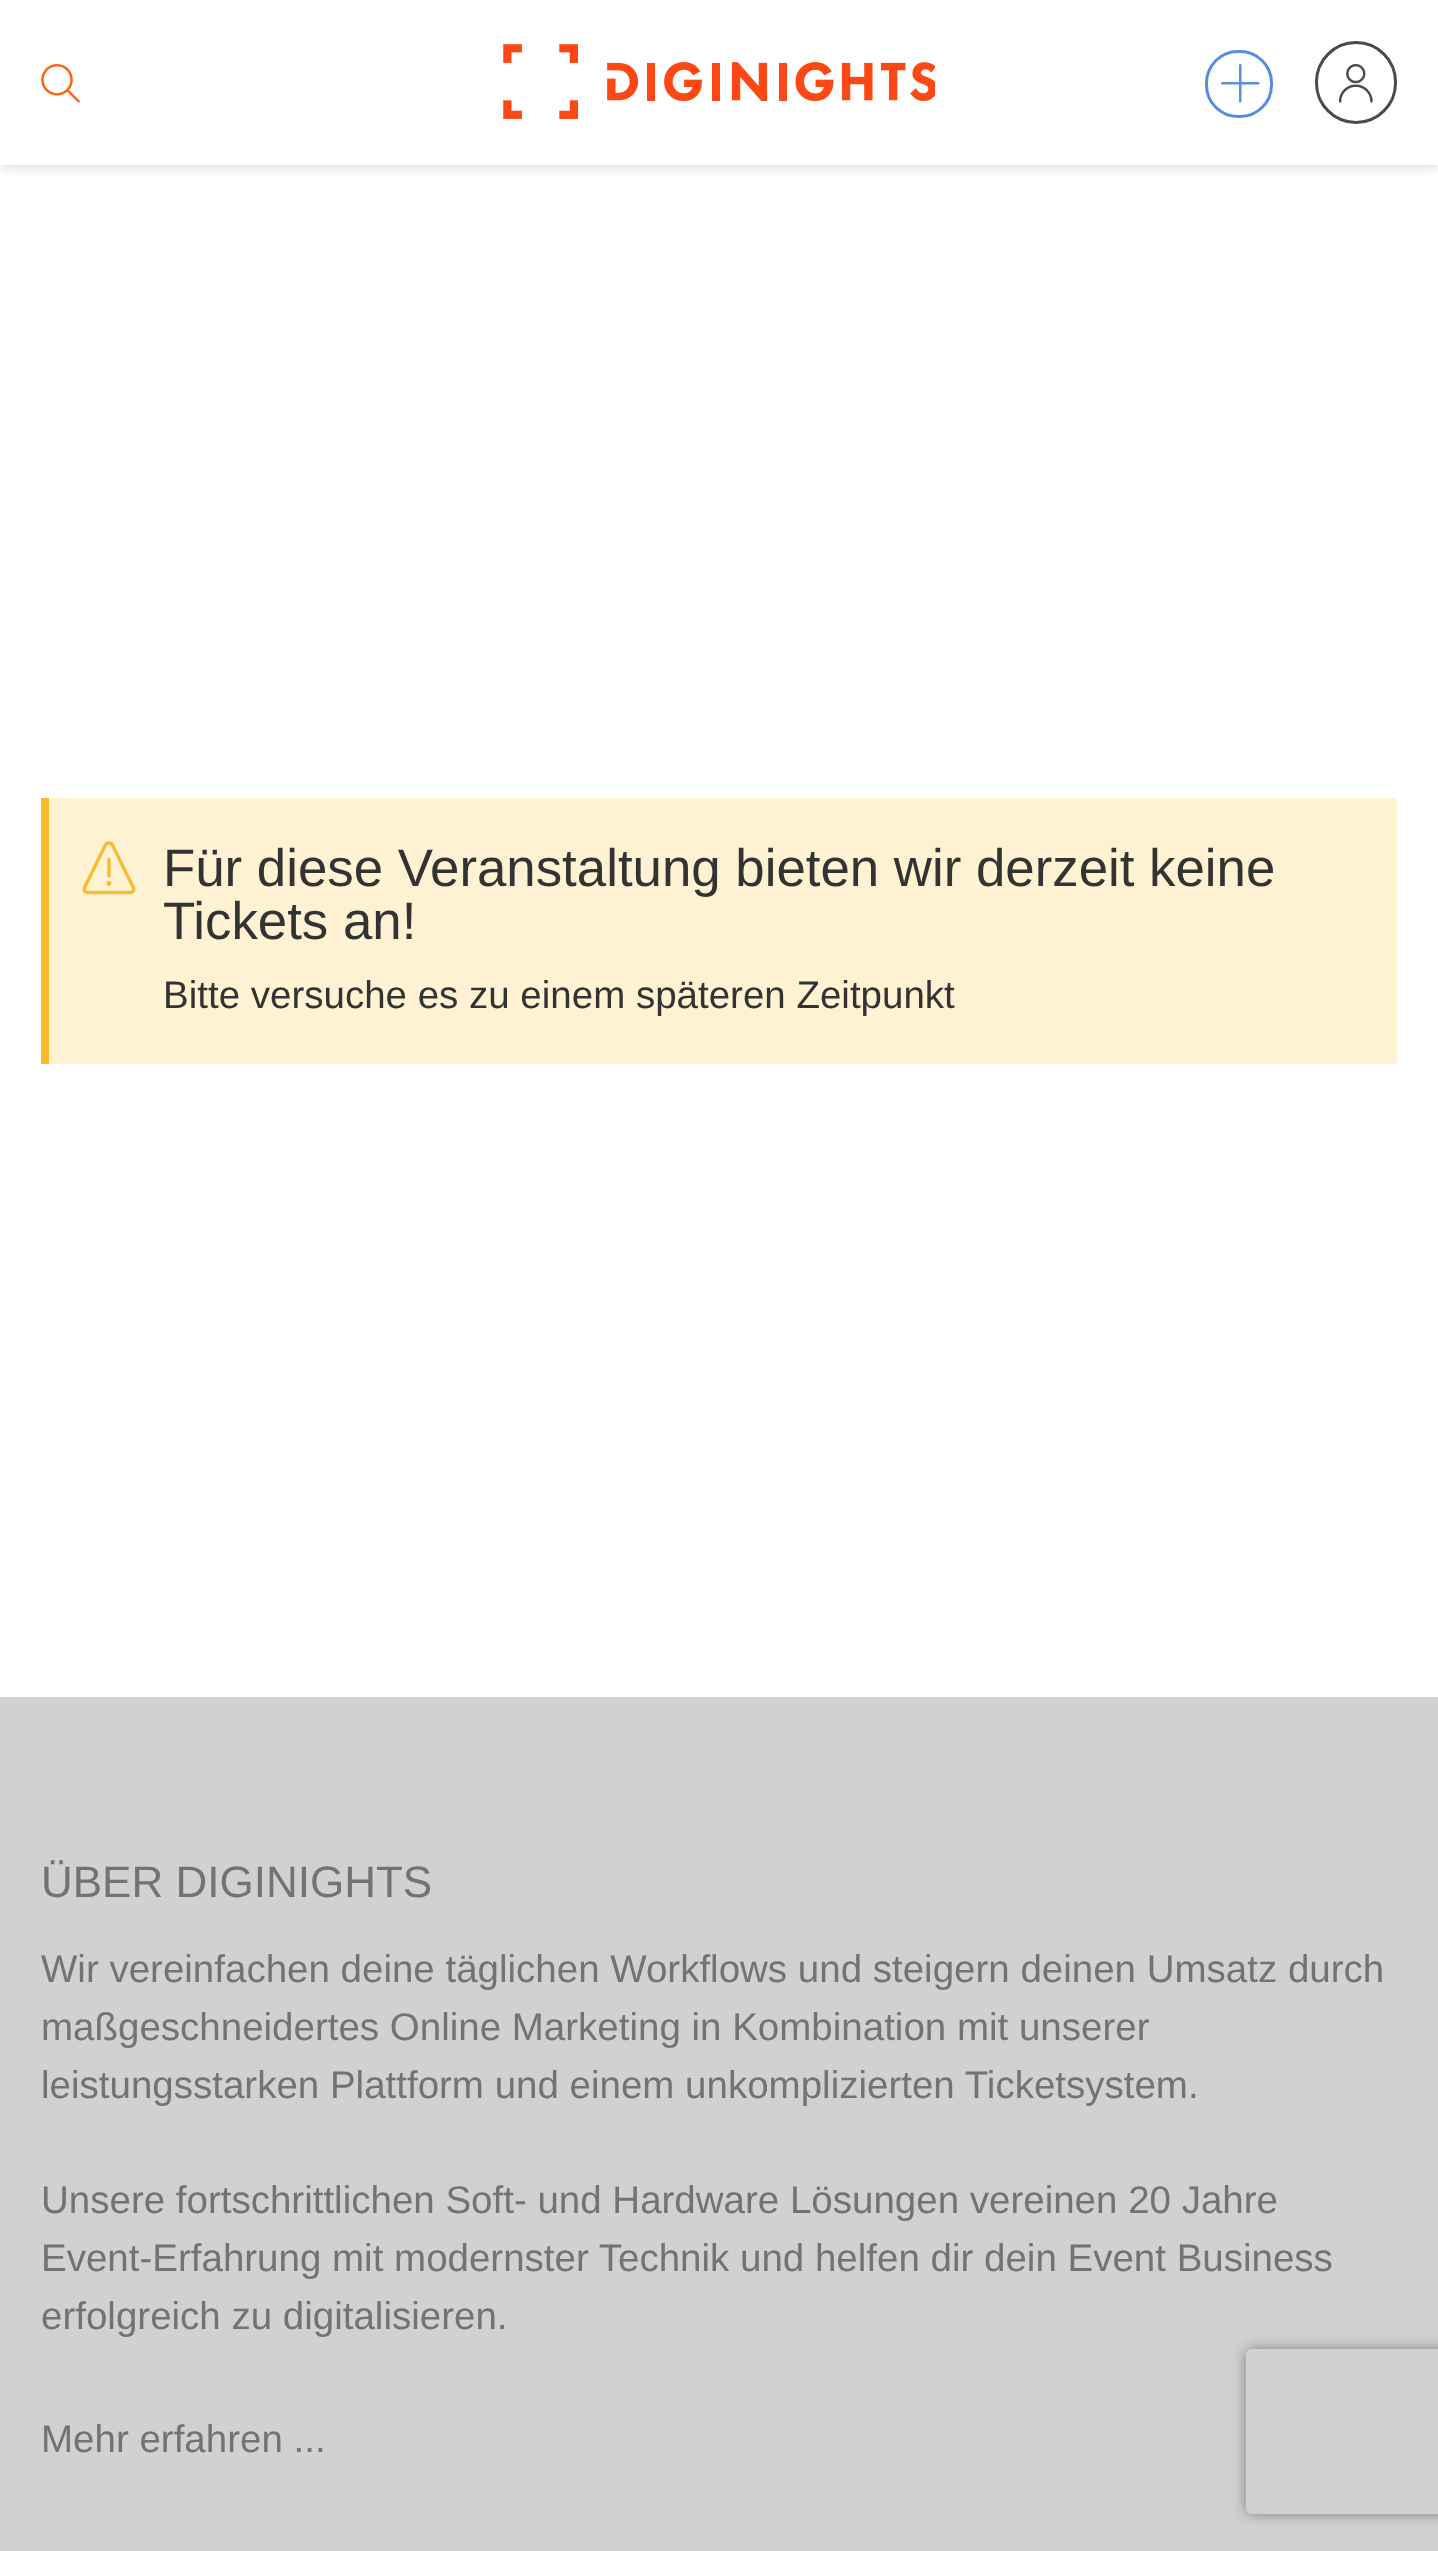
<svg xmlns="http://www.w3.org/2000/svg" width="1438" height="2551">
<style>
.a{font:52.8px Liberation Sans;fill:#333}
.b{font:38.5px Liberation Sans;fill:#333}
.c{font:44px Liberation Sans;fill:#737373}
.d{font:38.5px Liberation Sans;fill:#737373}
</style>
<defs>
<clipPath id="clip1"><path d="M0 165h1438v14H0z"/></clipPath>
<clipPath id="clip2"><path d="M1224 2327h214v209h-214zm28 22h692c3.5 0 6 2.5 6 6v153c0 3.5-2.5 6-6 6h-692c-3.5 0-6-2.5-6-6v-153c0-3.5 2.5-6 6-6z" clip-rule="evenodd"/></clipPath>
</defs>
<rect width="100%" height="100%" fill="#fff"/>
<g clip-path="url(#clip1)">
<path fill="#ddd" filter="blur(5.5px)" d="M0 3h1438v165H0z"/>
</g>
<image href="1.png" x="41" y="64" width="39" height="39"/>
<image href="2.png" x="503" y="44" width="432" height="75"/>
<rect fill="none" stroke="#568ce1" stroke-width="3" x="1206.5" y="51.5" width="65" height="65" rx="31.5"/>
<image href="3.png" x="1221" y="64" width="39" height="39"/>
<rect fill="none" stroke="#4a4a4a" stroke-width="3" x="1316.5" y="42.5" width="79" height="80" rx="39.5"/>
<image href="4.png" x="1338" y="64" width="35" height="39"/>
<path fill="#fef2d3" d="M49 798h1348v266H49z"/>
<path fill="#f9bb2c" d="M41 798h8v266H41z"/>
<image href="5.png" x="82" y="841" width="54" height="54"/>
<path fill="#d1d1d1" d="M0 1697h1438v854H0z"/>
<g clip-path="url(#clip2)">
<rect fill="#808080" filter="blur(7px)" x="1246" y="2349" width="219" height="165" rx="6"/>
</g>
<text class="a" x="163" y="886">Für diese Veranstaltung bieten wir derzeit keine</text>
<text class="a" x="163" y="939">Tickets an!</text>
<text class="b" x="163" y="1008">Bitte versuche es zu einem späteren Zeitpunkt</text>
<text class="c" x="41" y="1897">ÜBER DIGINIGHTS</text>
<text class="d" x="41" y="1982">Wir vereinfachen deine täglichen Workflows und steigern deinen Umsatz durch</text>
<text class="d" x="41" y="2040">maßgeschneidertes Online Marketing in Kombination mit unserer</text>
<text class="d" x="41" y="2098">leistungsstarken Plattform und einem unkomplizierten Ticketsystem.</text>
<text class="d" x="41" y="2213">Unsere fortschrittlichen Soft- und Hardware Lösungen vereinen 20 Jahre</text>
<text class="d" x="41" y="2271">Event-Erfahrung mit modernster Technik und helfen dir dein Event Business</text>
<text class="d" x="41" y="2329">erfolgreich zu digitalisieren.</text>
<text class="d" x="41" y="2452">Mehr erfahren ...</text>
</svg>
